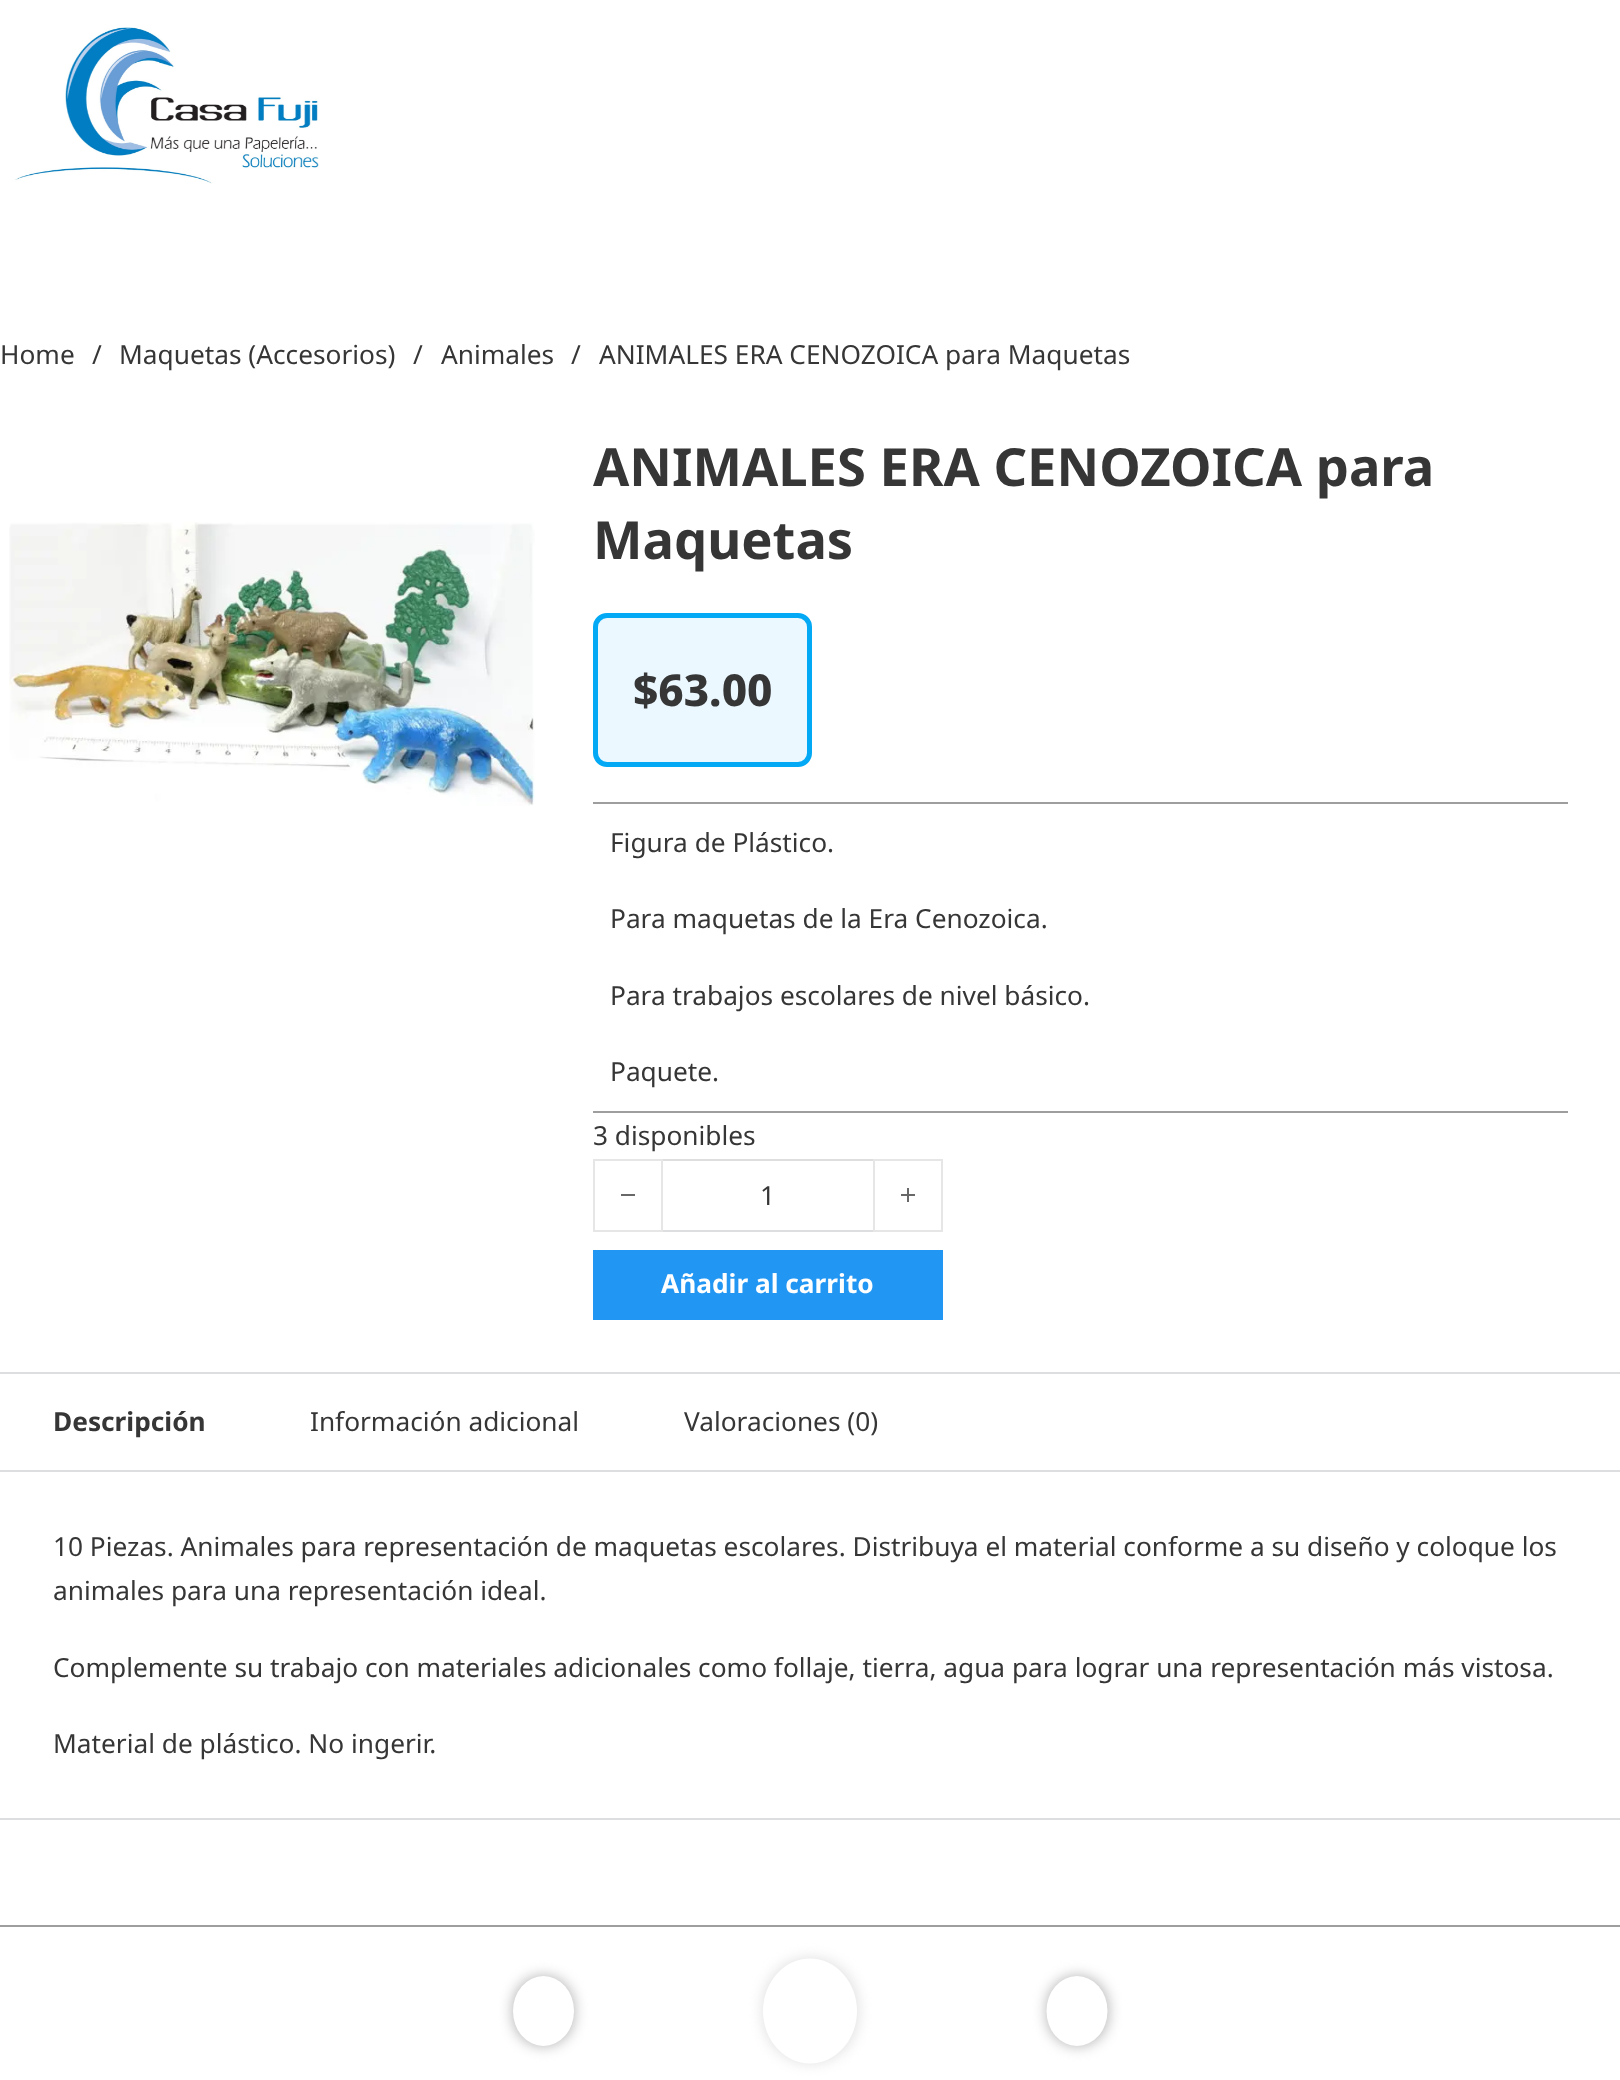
<svg xmlns="http://www.w3.org/2000/svg" width="1620" height="2080">
<style>
.a{font:26.25px Noto Sans;fill:#363636}
.b{font:bold 52.5px Noto Sans;fill:#363636}
.c{font:800 44px Noto Sans;fill:#363636}
.d{font:bold 26.25px Noto Sans;fill:#fff}
.e{font:bold 26.25px Noto Sans;fill:#363636}
</style>
<rect width="100%" height="100%" fill="#fff"/>
<image href="1.png" x="15" y="27" width="304" height="157"/>
<image href="2.png" x="9" y="522" width="526" height="284"/>
<rect fill="#ebf8ff" stroke="#03a9f4" stroke-width="5" x="595.5" y="615.5" width="214" height="149" rx="11.5"/>
<path fill="#9e9e9e" d="M593 802h975v2H593z"/>
<path fill="#9e9e9e" d="M593 1111h975v2H593z"/>
<path fill="none" stroke="#e6e6e7" stroke-width="2" d="M594 1160h68v71H594z"/>
<path fill="#686868" d="M621 1194h14v2H621z"/>
<path fill="#dddedf" d="M663 1159h210v2H663z"/>
<path fill="#dddedf" d="M663 1230h210v2H663z"/>
<path fill="none" stroke="#e6e6e7" stroke-width="2" d="M874 1160h68v71H874z"/>
<path fill="#686868" d="M907 1188h2v14H907z"/>
<path fill="#686868" d="M901 1194h14v2H901z"/>
<path fill="#2196f3" d="M593 1250h350v70H593z"/>
<path fill="#dddedf" d="M0 1372h1620v2H0z"/>
<path fill="#dddedf" d="M0 1818h1620v2H0z"/>
<path fill="#dddedf" d="M0 1470h1620v2H0z"/>
<path fill="#9e9e9e" d="M0 1925h1620v2H0z"/>
<rect fill="#b3b3b3" filter="blur(7px)" x="513" y="1976" width="61" height="70" rx="30.5"/>
<ellipse fill="#fff" cx="543.5" cy="2011" rx="30.5" ry="35"/>
<rect fill="#e0e0e0" filter="blur(7px)" x="763" y="1958" width="95" height="105" rx="47.5"/>
<ellipse fill="#fff" cx="810" cy="2011" rx="47" ry="52.5"/>
<rect fill="#b3b3b3" filter="blur(7px)" x="1047" y="1976" width="61" height="70" rx="30.5"/>
<ellipse fill="#fff" cx="1077" cy="2011" rx="30.5" ry="35"/>
<text class="a" x="0" y="364">Home</text>
<text class="a" x="92" y="364">/</text>
<text class="a" x="119" y="364">Maquetas (Accesorios)</text>
<text class="a" x="413" y="364">/</text>
<text class="a" x="441" y="364">Animales</text>
<text class="a" x="571" y="364">/</text>
<text class="a" x="599" y="364">ANIMALES ERA CENOZOICA para Maquetas</text>
<text class="b" x="593" y="486">ANIMALES ERA CENOZOICA para</text>
<text class="b" x="593" y="559">Maquetas</text>
<text class="c" x="633" y="706">$63.00</text>
<text class="a" x="610" y="852">Figura de Plástico.</text>
<text class="a" x="610" y="928">Para maquetas de la Era Cenozoica.</text>
<text class="a" x="610" y="1005">Para trabajos escolares de nivel básico.</text>
<text class="a" x="610" y="1081">Paquete.</text>
<text class="a" x="593" y="1145">3 disponibles</text>
<text class="a" x="760" y="1205">1</text>
<text class="d" x="661" y="1293">Añadir al carrito</text>
<text class="e" x="53" y="1431">Descripción</text>
<text class="a" x="310" y="1431">Información adicional</text>
<text class="a" x="684" y="1431">Valoraciones (0)</text>
<text class="a" x="53" y="1556">10 Piezas. Animales para representación de maquetas escolares. Distribuya el material conforme a su diseño y coloque los</text>
<text class="a" x="53" y="1600">animales para una representación ideal.</text>
<text class="a" x="53" y="1677">Complemente su trabajo con materiales adicionales como follaje, tierra, agua para lograr una representación más vistosa.</text>
<text class="a" x="53" y="1753">Material de plástico. No ingerir.</text>
</svg>
